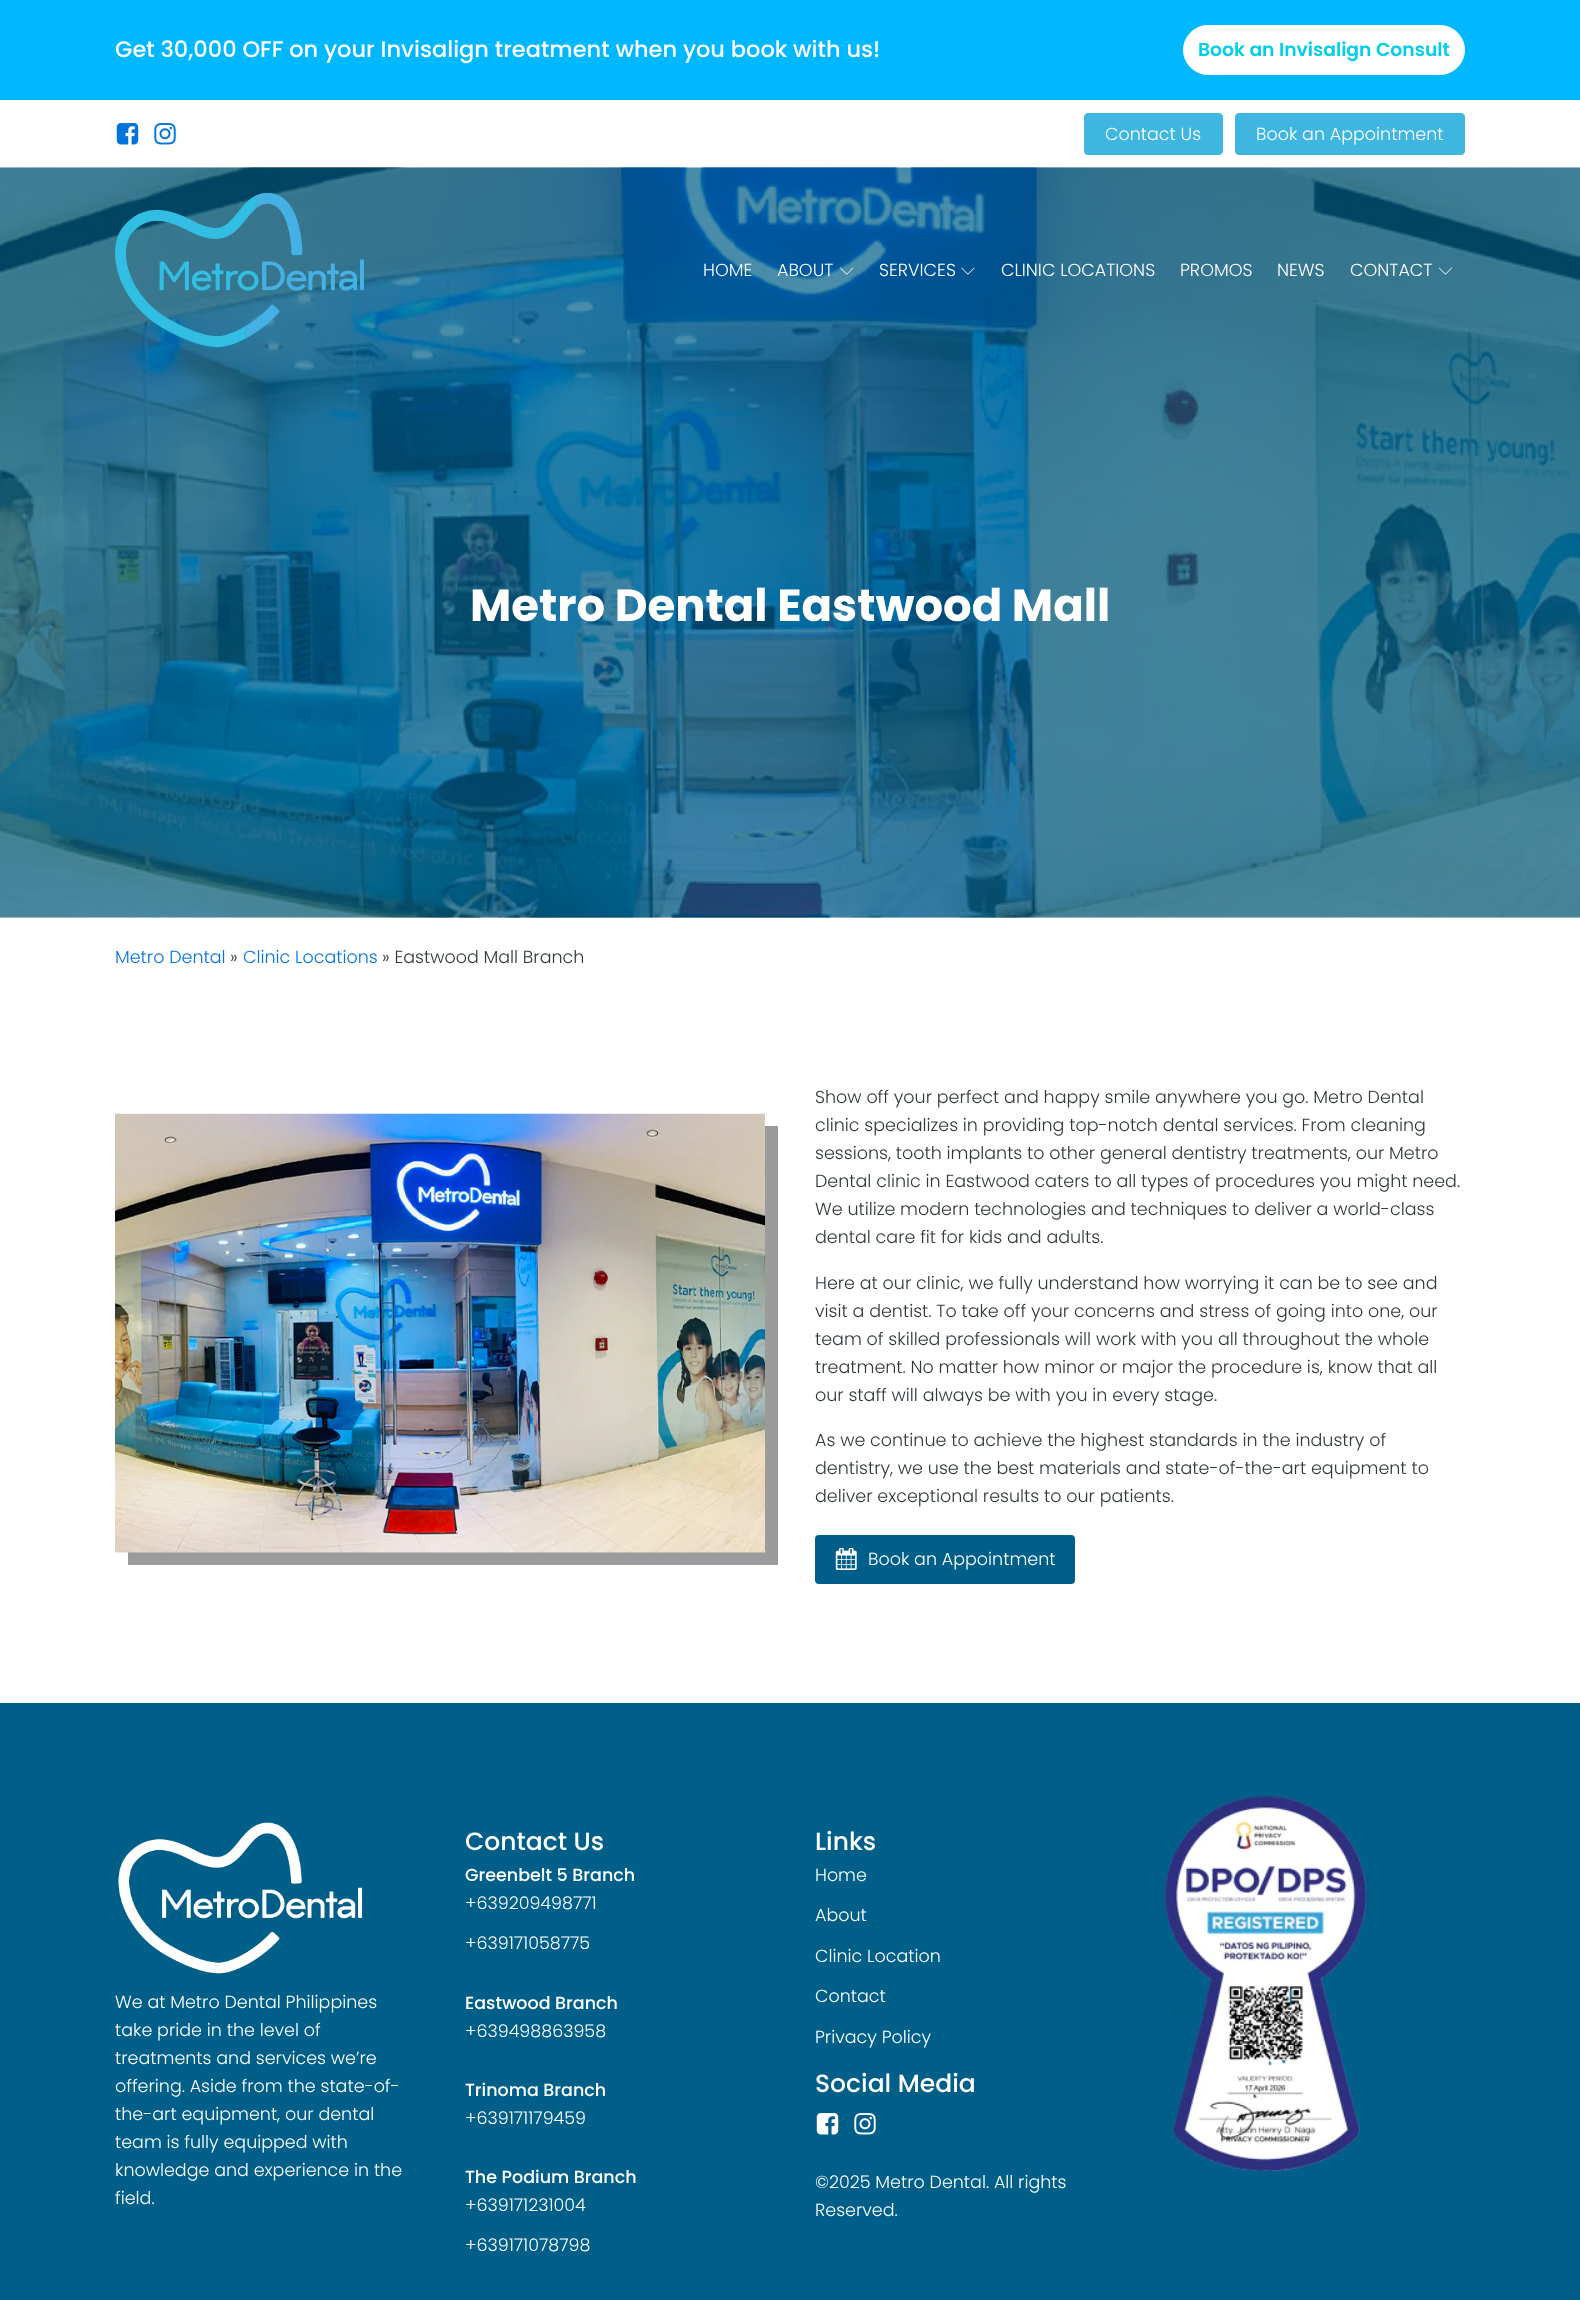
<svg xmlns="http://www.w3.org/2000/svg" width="1580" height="2300">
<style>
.a{font:500 22.5px Poppins;fill:#fff}
.b{font:600 18.75px Poppins;fill:#00d0e7}
.c{font:300 17.5px Poppins;fill:#fff}
.d{font:bold 45px Poppins;fill:#fff}
.e{font:300 17.5px Poppins;fill:#0074db}
.f{font:300 17.5px Poppins;fill:#30383b}
.g{font:500 25px Poppins;fill:#fff}
.h{font:500 17.5px Poppins;fill:#fff}
</style>
<rect width="100%" height="100%" fill="#fff"/>
<path fill="#00b8ff" d="M0 0h1580v100H0z"/>
<rect fill="#fff" stroke="#fff" x="1183.5" y="25.5" width="281" height="49" rx="24.5"/>
<image href="1.png" x="116" y="123" width="23" height="22"/>
<image href="2.png" x="154" y="123" width="22" height="22"/>
<rect fill="#3fb6e0" stroke="#3fb6e0" x="1084.5" y="113.5" width="138" height="41" rx="3.5"/>
<rect fill="#3fb6e0" stroke="#3fb6e0" x="1235.5" y="113.5" width="229" height="41" rx="3.5"/>
<image href="7.png" x="0" y="167" width="1580" height="751"/>
<image href="3.png" x="115" y="193" width="249" height="155"/>
<image href="4.png" x="840" y="267" width="14" height="8"/>
<image href="5.png" x="961" y="267" width="14" height="8"/>
<image href="6.png" x="1439" y="267" width="13" height="8"/>
<path fill="#9b9b9b" d="M128 1552v13h650v-439h-13v426z"/>
<image href="8.png" x="115" y="1113" width="650" height="440"/>
<rect fill="#005f89" x="815" y="1535" width="260" height="49" rx="4"/>
<image href="9.png" x="835" y="1548" width="22" height="22"/>
<path fill="#005f89" d="M0 1703h1580v597H0z"/>
<image href="10.png" x="118" y="1822" width="245" height="152"/>
<image href="11.png" x="816" y="2113" width="23" height="22"/>
<image href="12.png" x="854" y="2113" width="22" height="22"/>
<image href="13.png" x="1165" y="1796" width="202" height="376"/>
<text class="a" x="115" y="57">Get 30,000 OFF on your Invisalign treatment when you book with us!</text>
<text class="b" x="1198" y="56">Book an Invisalign Consult</text>
<text class="c" x="1105" y="140">Contact Us</text>
<text class="c" x="1256" y="140">Book an Appointment</text>
<text class="c" x="703" y="276">HOME</text>
<text class="c" x="777" y="276">ABOUT</text>
<text class="c" x="879" y="276">SERVICES</text>
<text class="c" x="1001" y="276">CLINIC LOCATIONS</text>
<text class="c" x="1180" y="276">PROMOS</text>
<text class="c" x="1277" y="276">NEWS</text>
<text class="c" x="1350" y="276">CONTACT</text>
<text class="d" x="470" y="621">Metro Dental Eastwood Mall</text>
<text class="e" x="115" y="963">Metro Dental</text>
<text class="f" x="230" y="963">»</text>
<text class="e" x="243" y="963">Clinic Locations</text>
<text class="f" x="382" y="963">» Eastwood Mall Branch</text>
<text class="f" x="815" y="1103">Show off your perfect and happy smile anywhere you go. Metro Dental</text>
<text class="f" x="815" y="1131">clinic specializes in providing top-notch dental services. From cleaning</text>
<text class="f" x="815" y="1159">sessions, tooth implants to other general dentistry treatments, our Metro</text>
<text class="f" x="815" y="1187">Dental clinic in Eastwood caters to all types of procedures you might need.</text>
<text class="f" x="815" y="1215">We utilize modern technologies and techniques to deliver a world-class</text>
<text class="f" x="815" y="1243">dental care fit for kids and adults.</text>
<text class="f" x="815" y="1289">Here at our clinic, we fully understand how worrying it can be to see and</text>
<text class="f" x="815" y="1317">visit a dentist. To take off your concerns and stress of going into one, our</text>
<text class="f" x="815" y="1345">team of skilled professionals will work with you all throughout the whole</text>
<text class="f" x="815" y="1373">treatment. No matter how minor or major the procedure is, know that all</text>
<text class="f" x="815" y="1401">our staff will always be with you in every stage.</text>
<text class="f" x="815" y="1446">As we continue to achieve the highest standards in the industry of</text>
<text class="f" x="815" y="1474">dentistry, we use the best materials and state-of-the-art equipment to</text>
<text class="f" x="815" y="1502">deliver exceptional results to our patients.</text>
<text class="c" x="868" y="1565">Book an Appointment</text>
<text class="c" x="115" y="2008">We at Metro Dental Philippines</text>
<text class="c" x="115" y="2036">take pride in the level of</text>
<text class="c" x="115" y="2064">treatments and services we’re</text>
<text class="c" x="115" y="2092">offering. Aside from the state-of-</text>
<text class="c" x="115" y="2120">the-art equipment, our dental</text>
<text class="c" x="115" y="2148">team is fully equipped with</text>
<text class="c" x="115" y="2176">knowledge and experience in the</text>
<text class="c" x="115" y="2204">field.</text>
<text class="g" x="465" y="1850">Contact Us</text>
<text class="h" x="465" y="1881">Greenbelt 5 Branch</text>
<text class="c" x="465" y="1909">+639209498771</text>
<text class="c" x="465" y="1949">+639171058775</text>
<text class="h" x="465" y="2009">Eastwood Branch</text>
<text class="c" x="465" y="2037">+639498863958</text>
<text class="h" x="465" y="2096">Trinoma Branch</text>
<text class="c" x="465" y="2124">+639171179459</text>
<text class="h" x="465" y="2183">The Podium Branch</text>
<text class="c" x="465" y="2211">+639171231004</text>
<text class="c" x="465" y="2251">+639171078798</text>
<text class="g" x="815" y="1850">Links</text>
<text class="c" x="815" y="1881">Home</text>
<text class="c" x="815" y="1921">About</text>
<text class="c" x="815" y="1962">Clinic Location</text>
<text class="c" x="815" y="2002">Contact</text>
<text class="c" x="815" y="2043">Privacy Policy</text>
<text class="g" x="815" y="2092">Social Media</text>
<text class="c" x="815" y="2188">©2025 Metro Dental. All rights</text>
<text class="c" x="815" y="2216">Reserved.</text>
</svg>
